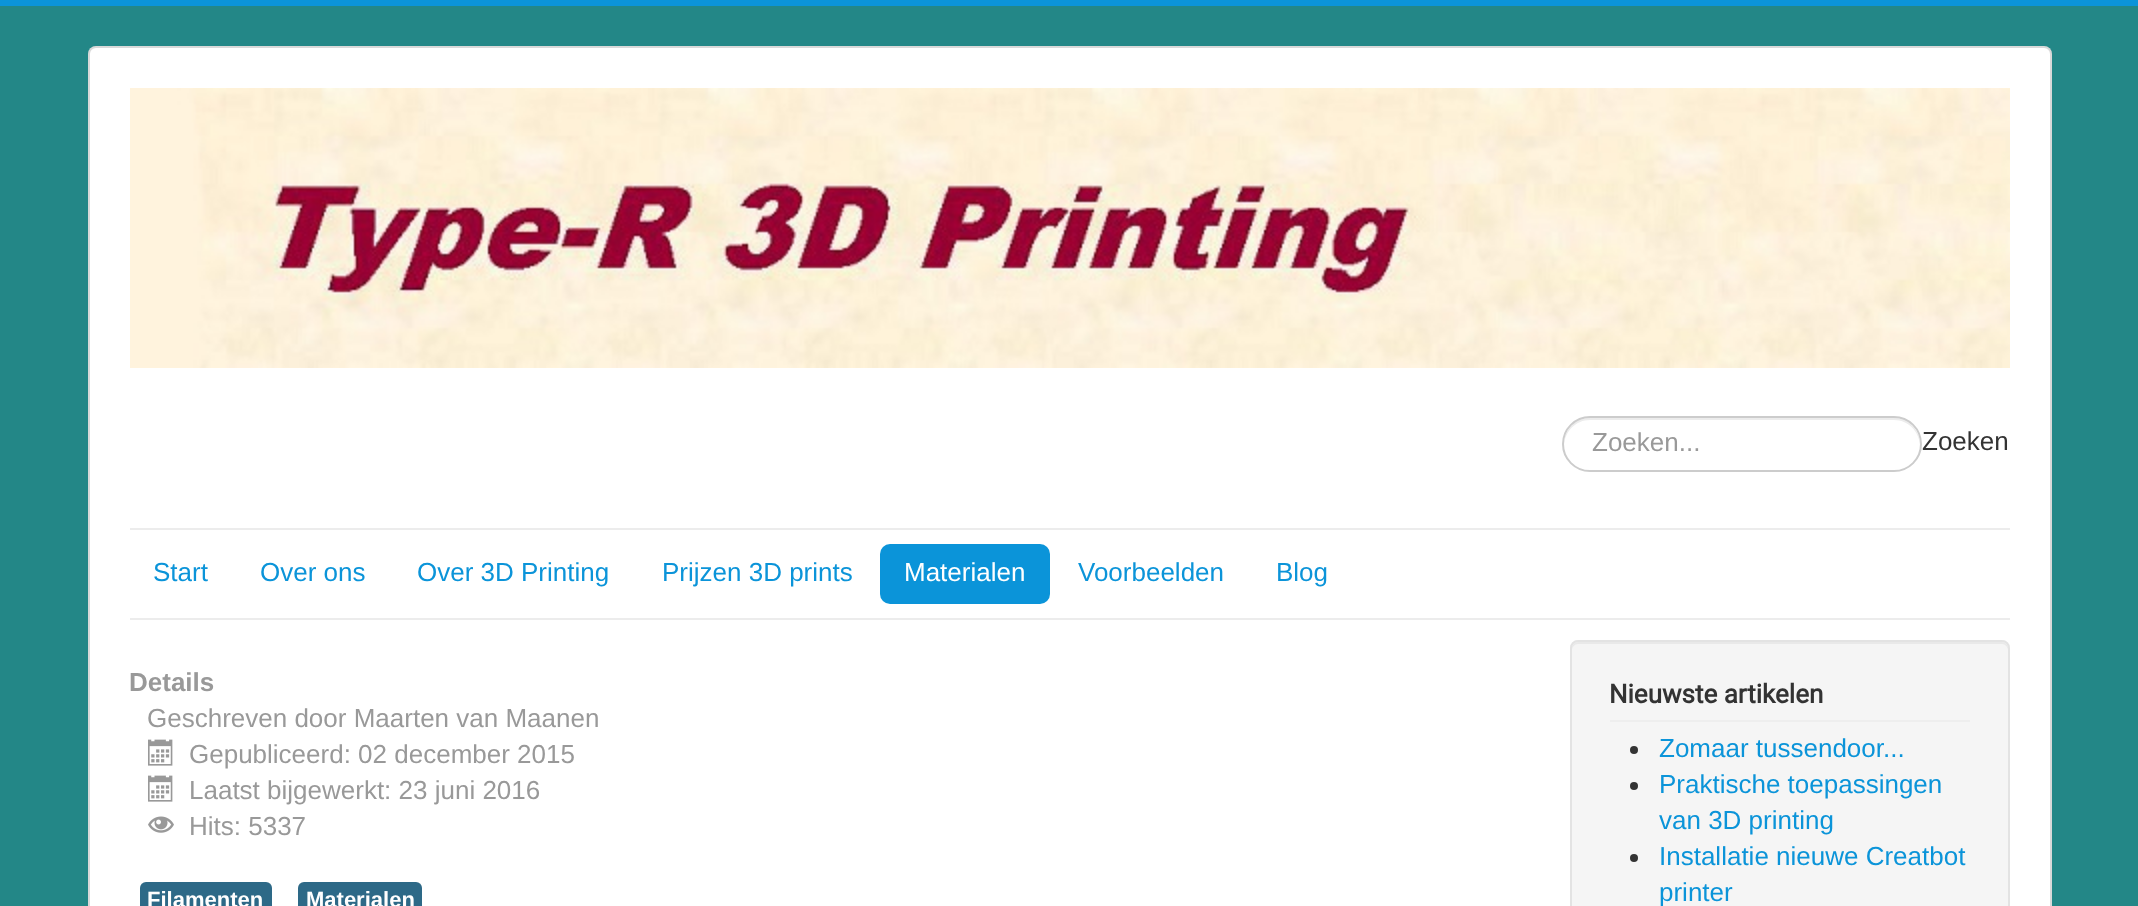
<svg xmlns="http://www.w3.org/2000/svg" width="2138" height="906">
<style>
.a{font:26px Liberation Sans;fill:#999}
.b{font:26px Liberation Sans;fill:#333}
.c{font:26px Liberation Sans;fill:#0b94d9}
.d{font:26px Liberation Sans;fill:#fff}
.e{font:bold 26px Liberation Sans;fill:#999}
.f{font:bold 22px Liberation Sans;fill:#fff}
.g{font:bold 26px Roboto;fill:#333}
</style>
<rect width="100%" height="100%" fill="#238787"/>
<path fill="#0b94d9" d="M0 0h2138v6H0z"/>
<rect fill="#fff" x="88" y="46" width="1964" height="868" rx="8"/>
<rect fill="none" stroke="#00000026" stroke-width="2" x="89" y="47" width="1962" height="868" rx="7"/>
<image href="1.png" x="130" y="88" width="1880" height="280"/>
<path fill="#ececec" d="M1590 420h304c14 0 25 11 26 25v-1c0-14-12-26-26-26h-304c-14 0-26 12-26 26v1c1-14 12-25 26-25z"/>
<rect fill="none" stroke="#ccc" stroke-width="2" x="1563" y="417" width="358" height="54" rx="27"/>
<path fill="#ececec" d="M130 528h1880v2H130z"/>
<path fill="#ececec" d="M130 618h1880v2H130z"/>
<rect fill="#0b94d9" x="880" y="544" width="170" height="60" rx="10"/>
<image href="2.png" x="148" y="739" width="25" height="27"/>
<image href="2.png" x="148" y="775" width="25" height="27"/>
<image href="3.png" x="148" y="816" width="26" height="17"/>
<rect fill="#2d6987" x="140" y="882" width="132" height="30" rx="6"/>
<rect fill="#2d6987" x="298" y="882" width="124" height="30" rx="6"/>
<rect fill="#f5f5f5" x="1570" y="640" width="440" height="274" rx="8"/>
<path fill="#e9e9e9" d="M1578 644h424c3 0 6 3 6 6v-2c0-3-3-6-6-6h-424c-3 0-6 3-6 6v2c0-3 3-6 6-6z"/>
<rect fill="none" stroke="#e3e3e3" stroke-width="2" x="1571" y="641" width="438" height="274" rx="7"/>
<path fill="#eee" d="M1610 720h360v2H1610z"/>
<circle fill="#333" cx="1634" cy="750" r="4"/>
<circle fill="#333" cx="1634" cy="786" r="4"/>
<circle fill="#333" cx="1634" cy="858" r="4"/>
<text class="a" x="1592" y="451">Zoeken...</text>
<text class="b" x="1922" y="450">Zoeken</text>
<text class="c" x="153" y="581">Start</text>
<text class="c" x="260" y="581">Over ons</text>
<text class="c" x="417" y="581">Over 3D Printing</text>
<text class="c" x="662" y="581">Prijzen 3D prints</text>
<text class="d" x="904" y="581">Materialen</text>
<text class="c" x="1078" y="581">Voorbeelden</text>
<text class="c" x="1276" y="581">Blog</text>
<text class="e" x="129" y="691">Details</text>
<text class="a" x="147" y="727">Geschreven door Maarten van Maanen</text>
<text class="a" x="189" y="763">Gepubliceerd: 02 december 2015</text>
<text class="a" x="189" y="799">Laatst bijgewerkt: 23 juni 2016</text>
<text class="a" x="189" y="835">Hits: 5337</text>
<text class="f" x="147" y="907">Filamenten</text>
<text class="f" x="306" y="907">Materialen</text>
<text class="g" x="1609" y="703">Nieuwste artikelen</text>
<text class="c" x="1659" y="757">Zomaar tussendoor...</text>
<text class="c" x="1659" y="793">Praktische toepassingen</text>
<text class="c" x="1659" y="829">van 3D printing</text>
<text class="c" x="1659" y="865">Installatie nieuwe Creatbot</text>
<text class="c" x="1659" y="901">printer</text>
</svg>
